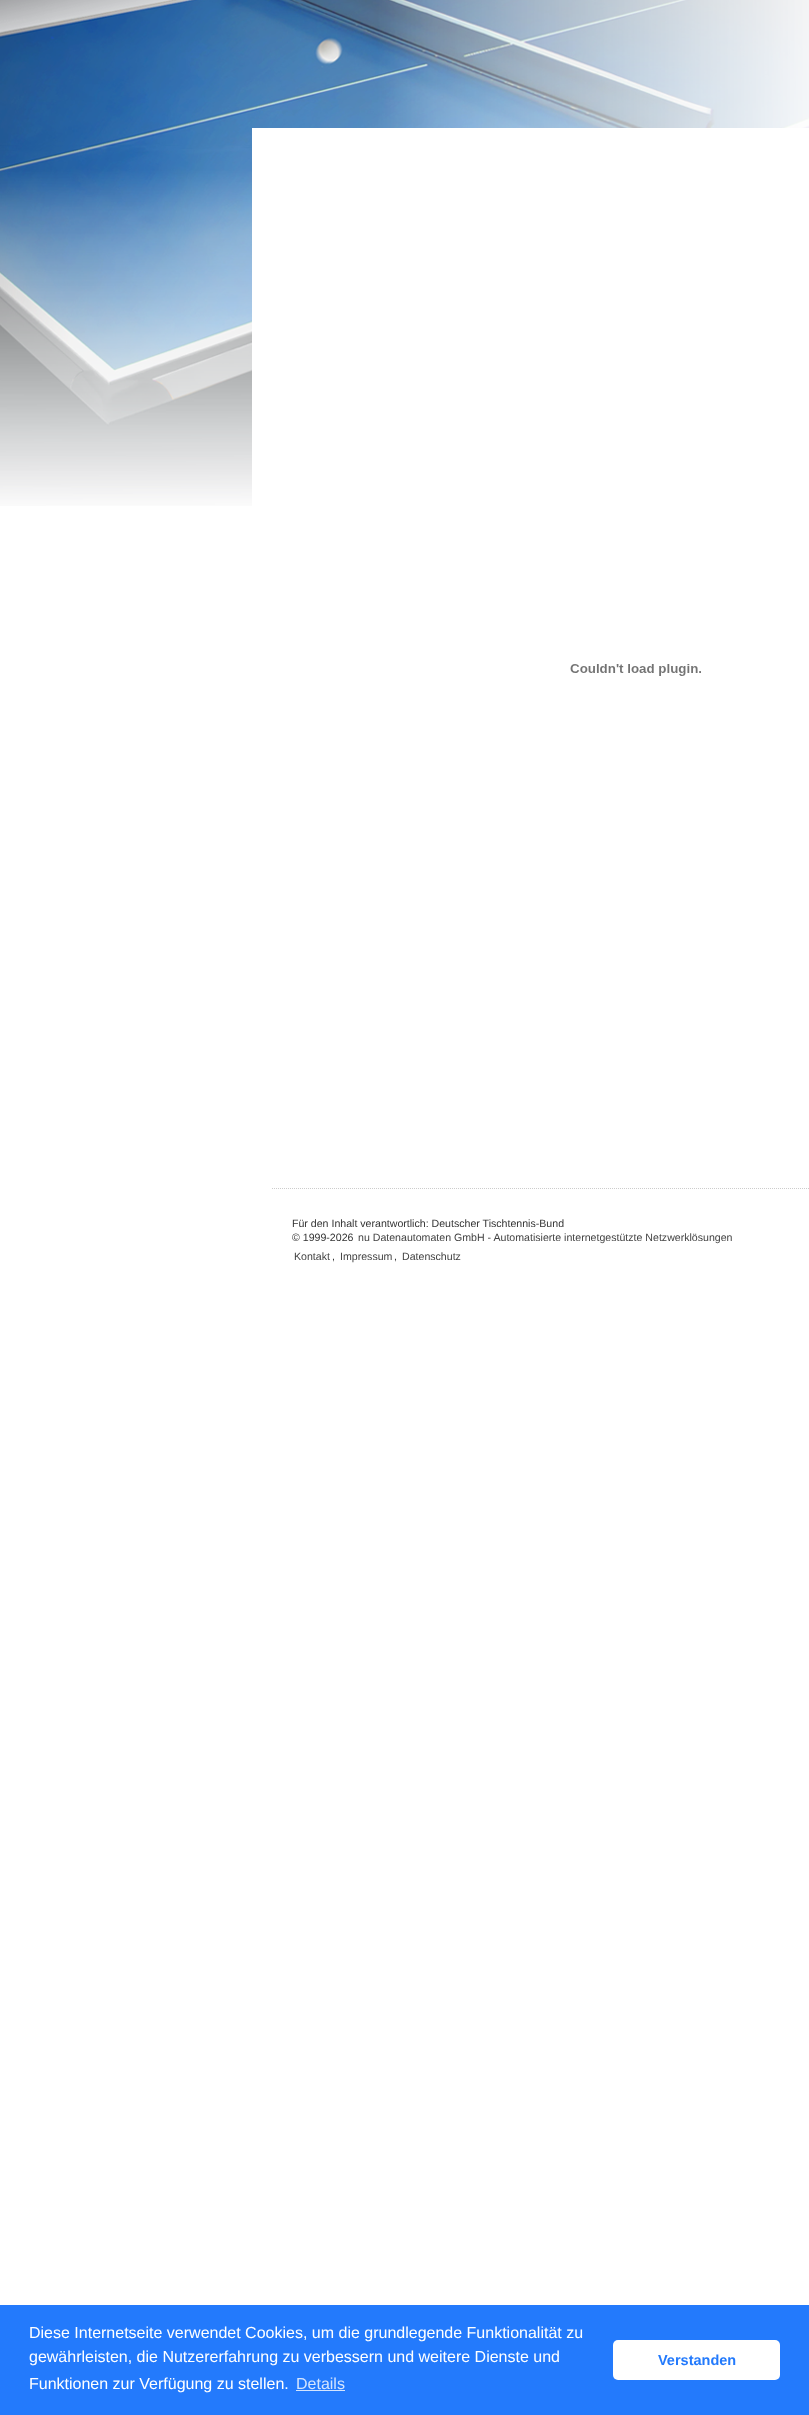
<svg xmlns="http://www.w3.org/2000/svg" width="809" height="2415">
<style>
.a{font:10.6px Liberation Sans;fill:#333}
.b{font:10.6px Liberation Sans;fill:#424242}
.c{font:16px Liberation Sans;fill:#fff}
.d{font:16px Liberation Sans;fill:#d3e4fe}
.e{font:bold 14.5px Liberation Sans;fill:#237afc}
</style>
<rect width="100%" height="100%" fill="#fff"/>
<image href="1.png" x="0" y="0" width="809" height="506"/>
<path fill="#fff" d="M252 128h557v19H252z"/>
<image href="2.png" x="570" y="664" width="131" height="12"/>
<path fill="none" stroke="#ccc" stroke-dasharray="1 1" d="M272 1188.5h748"/>
<path fill="#237afc" d="M0 2305h809v110H0z"/>
<path fill="#d3e4fe" d="M296 2390h49v1H296z"/>
<rect fill="#fff" x="613" y="2340" width="167" height="40" rx="5"/>
<text class="a" x="292" y="1227">Für den Inhalt verantwortlich: Deutscher Tischtennis-Bund</text>
<text class="a" x="292" y="1241">© 1999-2026</text>
<text class="b" x="358" y="1241">nu Datenautomaten GmbH - Automatisierte internetgestützte Netzwerklösungen</text>
<text class="b" x="294" y="1260">Kontakt</text>
<text class="a" x="332" y="1260">,</text>
<text class="b" x="340" y="1260">Impressum</text>
<text class="a" x="394" y="1260">,</text>
<text class="b" x="402" y="1260">Datenschutz</text>
<text class="c" x="29" y="2338">Diese Internetseite verwendet Cookies, um die grundlegende Funktionalität zu</text>
<text class="c" x="29" y="2362">gewährleisten, die Nutzererfahrung zu verbessern und weitere Dienste und</text>
<text class="c" x="29" y="2389">Funktionen zur Verfügung zu stellen.</text>
<text class="d" x="296" y="2389">Details</text>
<text class="e" x="658" y="2365">Verstanden</text>
</svg>
